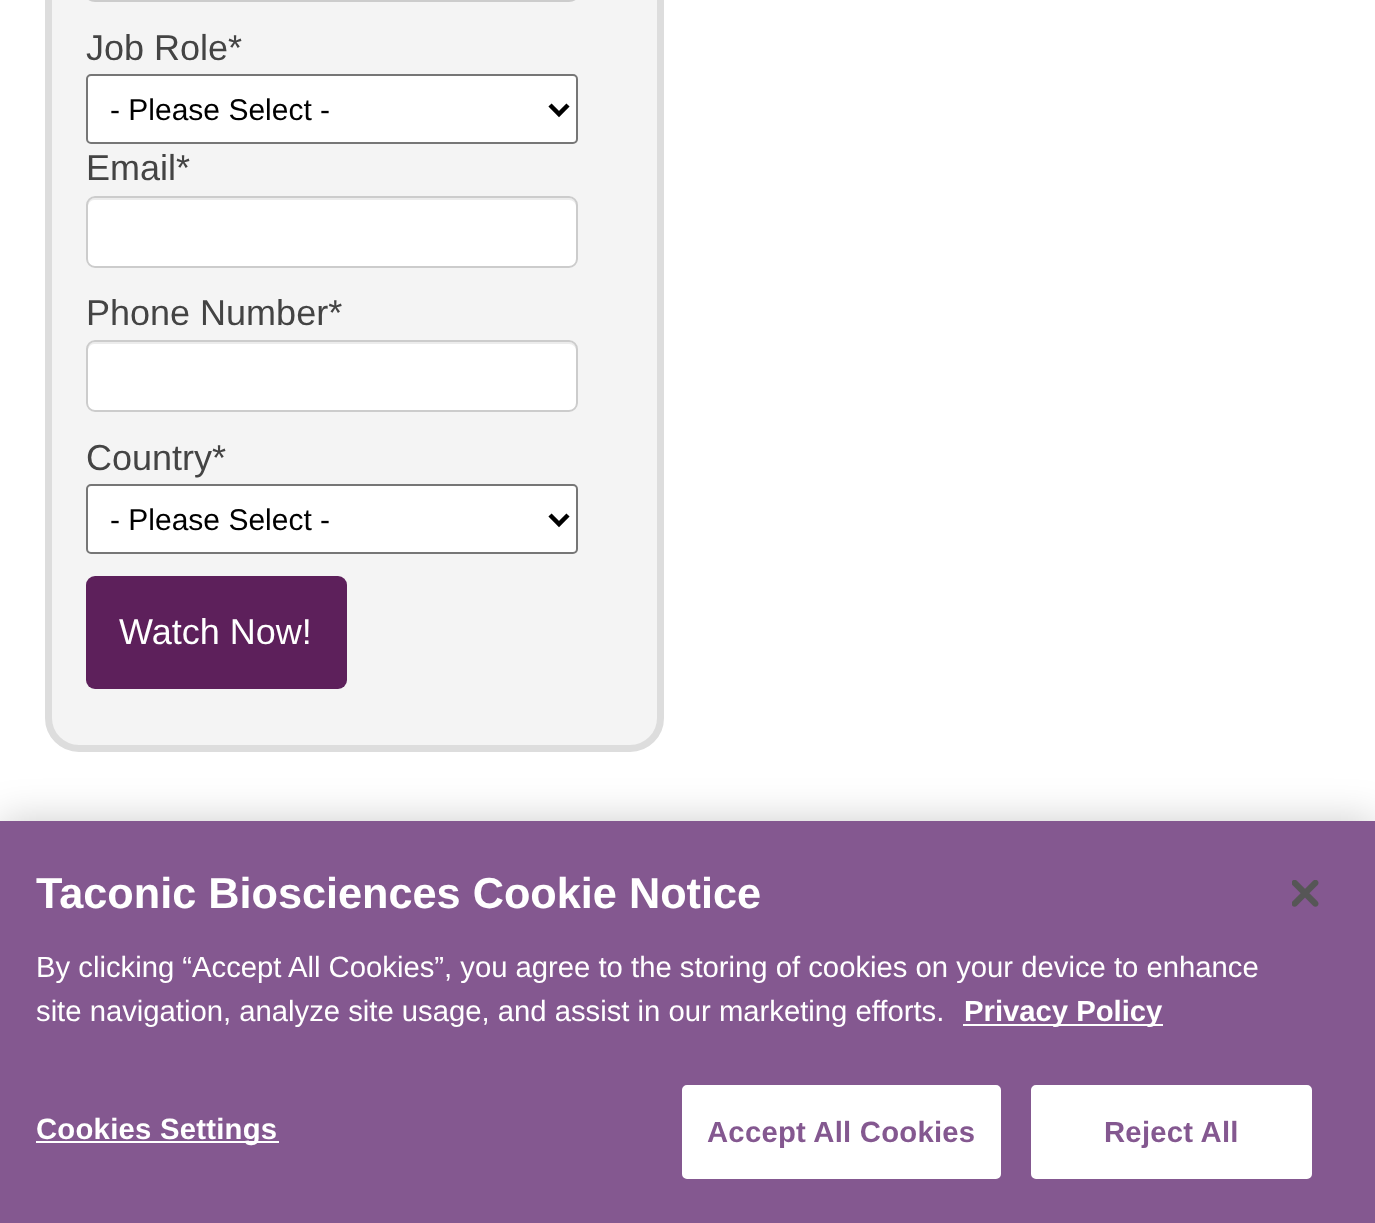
<svg xmlns="http://www.w3.org/2000/svg" width="1375" height="1223">
<style>
.a{font:36px Liberation Sans;fill:#444}
.b{font:30px Liberation Sans;fill:#000}
.c{font:36px Liberation Sans;fill:#fff}
.d{font:bold 43.25px Liberation Sans;fill:#fff}
.e{font:29.25px Liberation Sans;fill:#fff}
.f{font:bold 29.25px Liberation Sans;fill:#fff}
.g{font:bold 29.25px Liberation Sans;letter-spacing:0.25px;fill:#fff}
.h{font:bold 29.25px Liberation Sans;letter-spacing:0.25px;fill:#845890}
</style>
<rect width="100%" height="100%" fill="#fff"/>
<rect fill="#f4f4f4" stroke="#ddd" stroke-width="7" x="48.5" y="-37.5" width="612" height="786" rx="30.5"/>
<rect fill="none" stroke="#ccc" stroke-width="2" x="87" y="-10" width="490" height="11" rx="8"/>
<rect fill="#fff" stroke="#767676" stroke-width="2" x="87" y="75" width="490" height="68" rx="4"/>
<path fill="none" stroke="#000" stroke-width="4.5" d="M550 105l9 9l9-9"/>
<rect fill="#fff" x="86" y="196" width="492" height="72" rx="9"/>
<path fill="#ececec" d="M94 200h475c4 0 7 3 7 7v-2c0-4-3-7-7-7h-474c-4 0-7 3-7 7v2c0-4 3-7 6-7z"/>
<rect fill="none" stroke="#ccc" stroke-width="2" x="87" y="197" width="490" height="70" rx="8"/>
<rect fill="#fff" x="86" y="340" width="492" height="72" rx="9"/>
<path fill="#ececec" d="M94 344h475c4 0 7 3 7 7v-2c0-4-3-7-7-7h-474c-4 0-7 3-7 7v2c0-4 3-7 6-7z"/>
<rect fill="none" stroke="#ccc" stroke-width="2" x="87" y="341" width="490" height="70" rx="8"/>
<rect fill="#fff" stroke="#767676" stroke-width="2" x="87" y="485" width="490" height="68" rx="4"/>
<path fill="none" stroke="#000" stroke-width="4.5" d="M550 515l9 9l9-9"/>
<rect fill="#5d205b" x="86" y="576" width="261" height="113" rx="9"/>
<path fill="#00000033" filter="blur(20px)" d="M0 821h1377v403H0z"/>
<path fill="#845890" d="M0 821h1375v402H0z"/>
<path fill="#fff" d="M963 1024h200v2H963z"/>
<path fill="#fff" d="M36 1141h243v2H36z"/>
<rect fill="#fff" stroke="#fff" stroke-width="2" x="683" y="1086" width="317" height="92" rx="4"/>
<rect fill="#fff" stroke="#fff" stroke-width="2" x="1032" y="1086" width="279" height="92" rx="4"/>
<image href="1.png" x="1292" y="880" width="27" height="27"/>
<text class="a" x="86" y="60">Job Role*</text>
<text class="b" x="110" y="120">- Please Select -</text>
<text class="a" x="86" y="180">Email*</text>
<text class="a" x="86" y="325">Phone Number*</text>
<text class="a" x="86" y="470">Country*</text>
<text class="b" x="110" y="530">- Please Select -</text>
<text class="c" x="119" y="644">Watch Now!</text>
<text class="d" x="36" y="908">Taconic Biosciences Cookie Notice</text>
<text class="e" x="36" y="977">By clicking “Accept All Cookies”, you agree to the storing of cookies on your device to enhance</text>
<text class="e" x="36" y="1021">site navigation, analyze site usage, and assist in our marketing efforts.</text>
<text class="f" x="964" y="1021">Privacy Policy</text>
<text class="g" x="36" y="1139">Cookies Settings</text>
<text class="h" x="707" y="1142">Accept All Cookies</text>
<text class="h" x="1104" y="1142">Reject All</text>
</svg>
